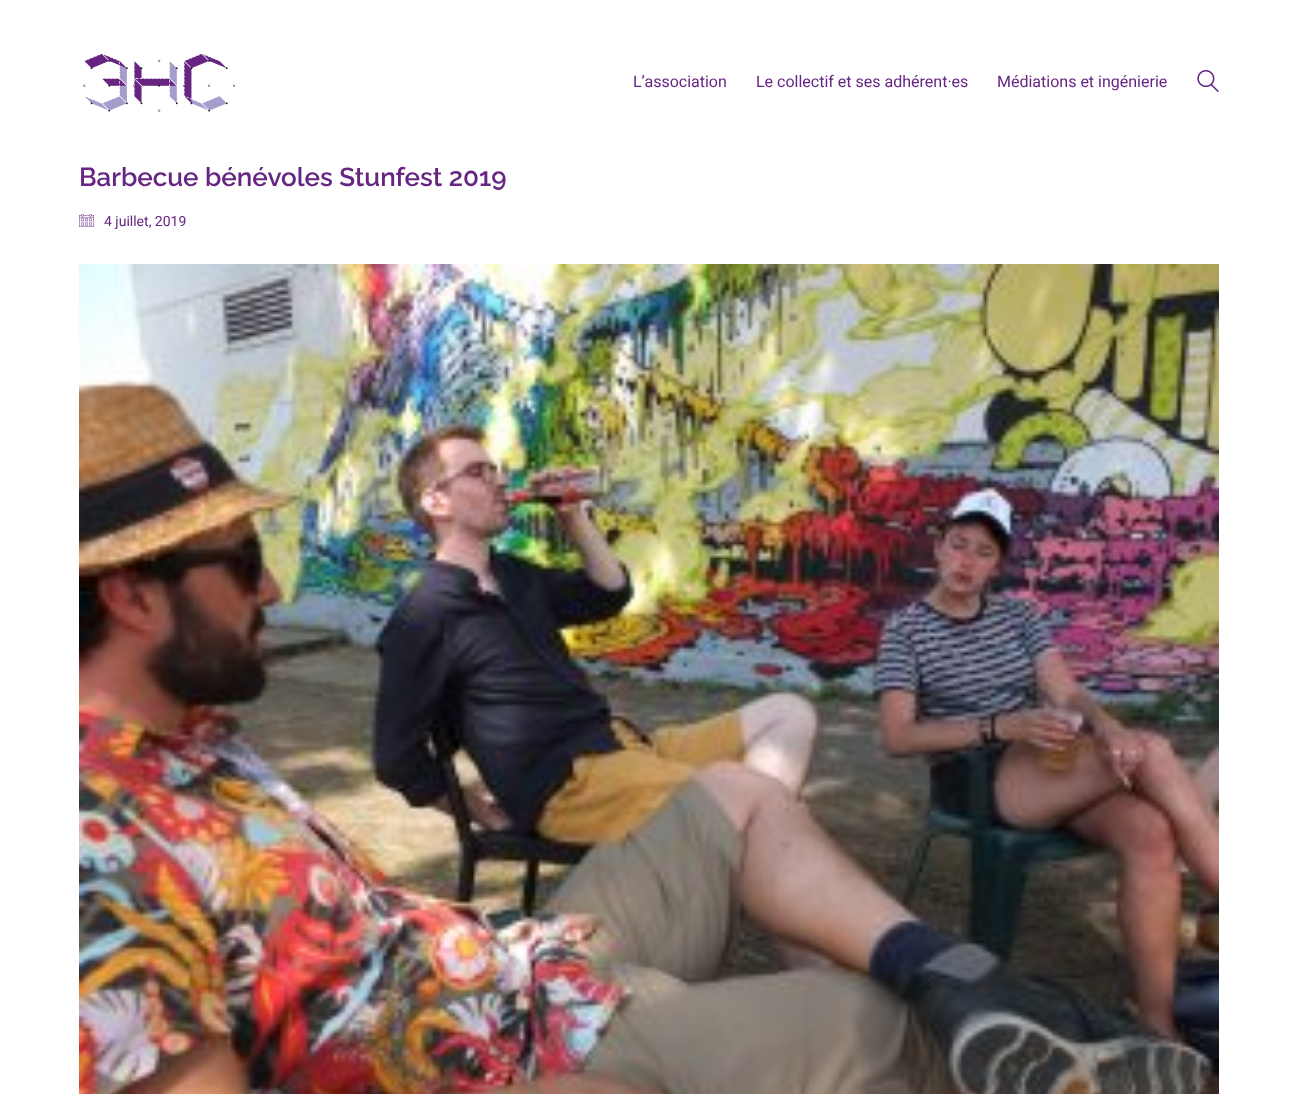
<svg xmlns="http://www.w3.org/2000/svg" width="1298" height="1094">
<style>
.a{font:16px Roboto;fill:#662483}
.b{font:600 26px Raleway;fill:#662483}
.c{font:14px Roboto;fill:#662483}
</style>
<rect width="100%" height="100%" fill="#fff"/>
<image href="1.png" x="83" y="53" width="153" height="59"/>
<image href="2.png" x="1197" y="70" width="22" height="22"/>
<image href="3.png" x="79" y="214" width="15" height="13"/>
<image href="4.png" x="79" y="264" width="1140" height="830"/>
<text class="a" x="633" y="87">L’association</text>
<text class="a" x="756" y="87">Le collectif et ses adhérent·es</text>
<text class="a" x="997" y="87">Médiations et ingénierie</text>
<text class="b" x="79" y="186">Barbecue bénévoles Stunfest 2019</text>
<text class="c" x="104" y="226">4 juillet, 2019</text>
</svg>
